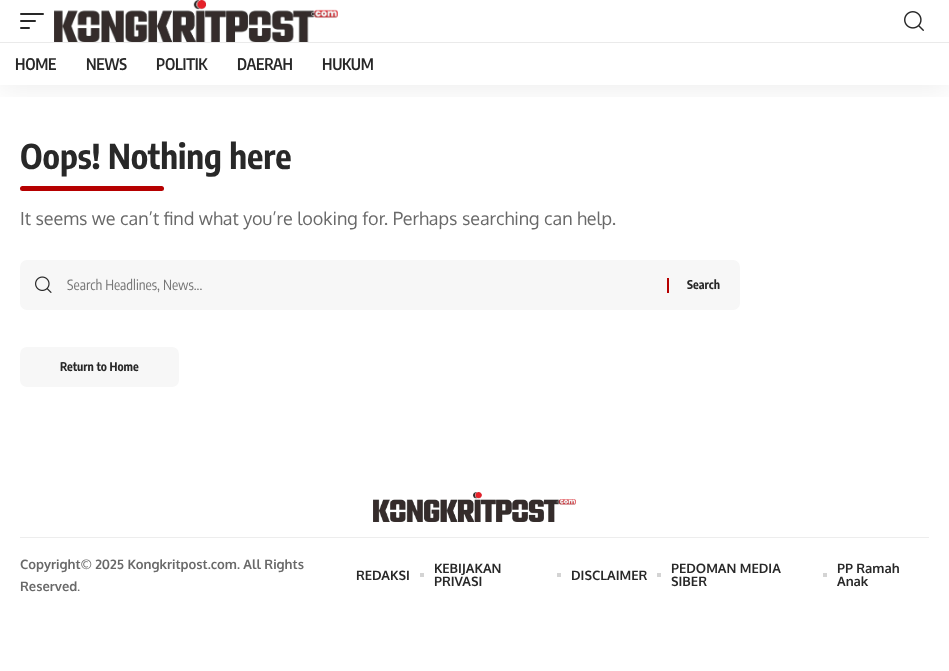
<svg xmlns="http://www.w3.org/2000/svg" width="949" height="671">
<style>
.a{font:600 16px Encode Sans Condensed;letter-spacing:-0.25px;fill:#282828}
.b{font:bold 34px Encode Sans Condensed;fill:#282828}
.c{font:18px Oxygen;fill:#696969}
.d{font:14px Encode Sans Condensed;fill:#757575}
.e{font:bold 12px Encode Sans Condensed;fill:#282828}
.f{font:bold 13px Oxygen;fill:#696969}
.g{font:13px Oxygen;fill:#696969}
.h{font:bold 13px Oxygen;fill:#282828}
</style>
<defs>
<clipPath id="clip1"><path d="M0 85h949v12H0z"/></clipPath>
</defs>
<rect width="100%" height="100%" fill="#fff"/>
<g clip-path="url(#clip1)">
<path fill="#00000012" filter="blur(15px)" d="M0 4h949v85H0z"/>
</g>
<rect fill="#282828" x="20" y="13" width="24" height="2" rx="1"/>
<rect fill="#282828" x="20" y="20" width="16" height="2" rx="1"/>
<rect fill="#282828" x="20" y="27" width="10" height="2" rx="1"/>
<image href="1.png" x="54" y="0" width="284" height="42"/>
<image href="2.png" x="904" y="11" width="20" height="20"/>
<path fill="#eaeaea" d="M0 42h949v1H0z"/>
<rect fill="#b60000" x="20" y="186" width="144" height="5" rx="2.5"/>
<rect fill="#f7f7f7" x="20" y="260" width="720" height="50" rx="7"/>
<image href="3.png" x="35" y="276" width="17" height="17"/>
<path fill="#b60000" d="M667 278h2v15H667z"/>
<rect fill="#f7f7f7" x="20" y="347" width="159" height="40" rx="7"/>
<image href="4.png" x="373" y="492" width="203" height="30"/>
<path fill="#ededed" d="M20 537h909v1H20z"/>
<path fill="#d4d4d4" d="M420 573h4v4H420z"/>
<path fill="#d4d4d4" d="M557 573h4v4H557z"/>
<path fill="#d4d4d4" d="M657 573h4v4H657z"/>
<path fill="#d4d4d4" d="M823 573h4v4H823z"/>
<text class="a" x="15" y="70">HOME</text>
<text class="a" x="86" y="70">NEWS</text>
<text class="a" x="156" y="70">POLITIK</text>
<text class="a" x="237" y="70">DAERAH</text>
<text class="a" x="322" y="70">HUKUM</text>
<text class="b" x="20" y="169">Oops! Nothing here</text>
<text class="c" x="20" y="225">It seems we can’t find what you’re looking for. Perhaps searching can help.</text>
<text class="d" x="67" y="290">Search Headlines, News...</text>
<text class="e" x="687" y="289">Search</text>
<text class="e" x="60" y="371">Return to Home</text>
<text class="f" x="20" y="569">Copyright© 2025 Kongkritpost.com. All Rights</text>
<text class="f" x="20" y="591">Reserved</text>
<text class="g" x="77" y="591">.</text>
<text class="h" x="356" y="580">REDAKSI</text>
<text class="h" x="434" y="573">KEBIJAKAN</text>
<text class="h" x="434" y="586">PRIVASI</text>
<text class="h" x="571" y="580">DISCLAIMER</text>
<text class="h" x="671" y="573">PEDOMAN MEDIA</text>
<text class="h" x="671" y="586">SIBER</text>
<text class="h" x="837" y="573">PP Ramah</text>
<text class="h" x="837" y="586">Anak</text>
</svg>
